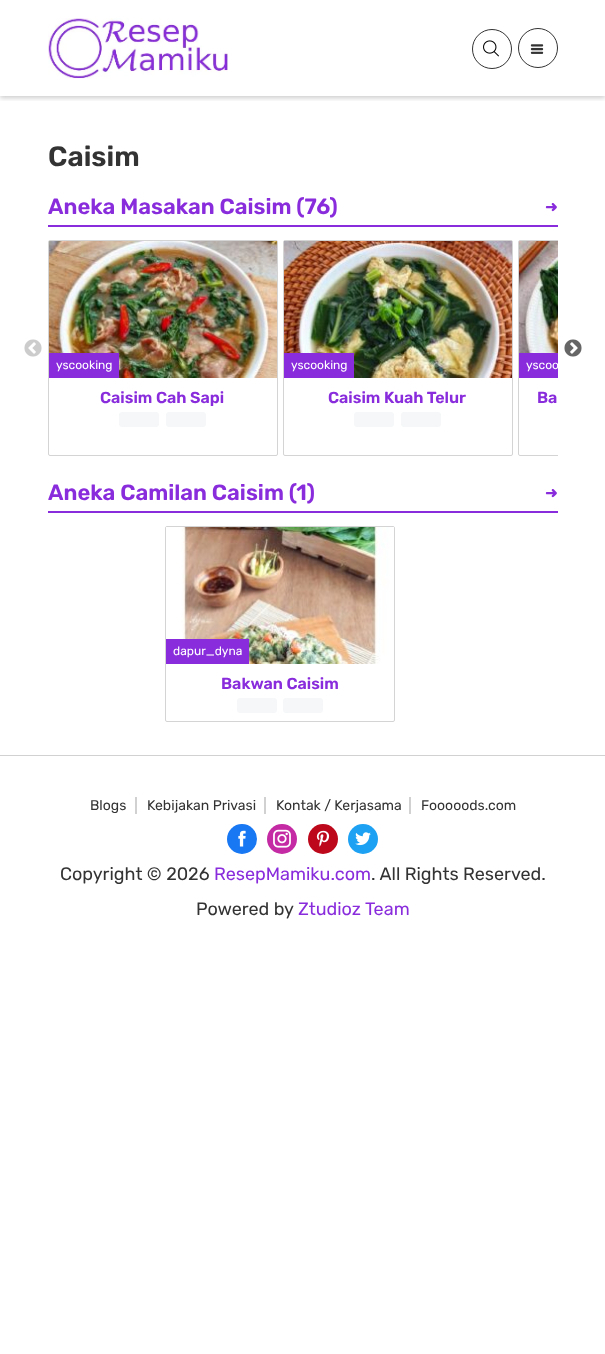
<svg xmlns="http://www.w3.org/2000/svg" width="605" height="1354">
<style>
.a{font:600 28px Rubik;fill:#333}
.b{font:600 22px Rubik;fill:#892cdc}
.c{font:bold 15px DejaVu Sans;fill:#892cdc}
.d{font:12px Rubik;fill:#fff}
.e{font:600 16px Rubik;fill:#892cdc}
.f{font:14px Rubik;fill:#333}
.g{font:18px Rubik;fill:#333}
.h{font:18px Rubik;fill:#892cdc}
</style>
<defs>
<clipPath id="clip1"><path d="M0 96h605v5H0z"/></clipPath>
<clipPath id="clip2"><path d="M48 240h510v216H48z"/></clipPath>
</defs>
<rect width="100%" height="100%" fill="#fff"/>
<g clip-path="url(#clip1)">
<path fill="#00000033" filter="blur(2.5px)" d="M0 2h605v96H0z"/>
</g>
<image href="1.png" x="48" y="18" width="180" height="61"/>
<circle fill="none" stroke="#333" cx="492" cy="49" r="19.5"/>
<image href="2.png" x="483" y="40" width="16" height="17"/>
<circle fill="none" stroke="#333" cx="538" cy="48" r="19.5"/>
<image href="3.png" x="530" y="44" width="14" height="10"/>
<path fill="#892cdc" d="M48 225h510v2H48z"/>
<image href="4.png" x="24" y="339" width="18" height="18"/>
<g clip-path="url(#clip2)">
<rect fill="none" stroke="#d4d4d4" x="518.5" y="240.5" width="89" height="215" rx="1.5"/>
</g>
<image href="5.png" x="564" y="339" width="18" height="18"/>
<rect fill="none" stroke="#d4d4d4" x="48.5" y="240.5" width="229" height="215" rx="1.5"/>
<image href="6.png" x="49" y="241" width="228" height="137"/>
<path fill="#892cdc" d="M49 353h70v25H49z"/>
<rect fill="#f6f7f8" x="119" y="412" width="40" height="15" rx="3"/>
<rect fill="#f6f7f8" x="166" y="412" width="40" height="15" rx="3"/>
<rect fill="none" stroke="#d4d4d4" x="283.5" y="240.5" width="229" height="215" rx="1.5"/>
<image href="7.png" x="284" y="241" width="228" height="137"/>
<path fill="#892cdc" d="M284 353h70v25H284z"/>
<rect fill="#f6f7f8" x="354" y="412" width="40" height="15" rx="3"/>
<rect fill="#f6f7f8" x="401" y="412" width="40" height="15" rx="3"/>
<image href="8.png" x="519" y="241" width="39" height="112"/>
<path fill="#892cdc" d="M519 353h39v25H519z"/>
<path fill="#892cdc" d="M48 511h510v2H48z"/>
<rect fill="none" stroke="#d4d4d4" x="165.5" y="526.5" width="229" height="195" rx="1.5"/>
<image href="9.png" x="166" y="527" width="228" height="137"/>
<path fill="#892cdc" d="M166 639h83v25H166z"/>
<rect fill="#f6f7f8" x="237" y="698" width="40" height="15" rx="3"/>
<rect fill="#f6f7f8" x="283" y="698" width="40" height="15" rx="3"/>
<path fill="#d1d1d1" d="M0 755h605v1H0z"/>
<path fill="#d1d1d1" d="M135 797h2v17H135z"/>
<path fill="#d1d1d1" d="M264 797h2v17H264z"/>
<path fill="#d1d1d1" d="M409 797h2v17H409z"/>
<circle fill="#1877f2" cx="242" cy="839" r="15"/>
<circle fill="#c32aa3" cx="282" cy="839" r="15"/>
<circle fill="#bd081c" cx="323" cy="839" r="15"/>
<circle fill="#1da1f2" cx="363" cy="839" r="15"/>
<image href="10.png" x="238" y="830" width="8" height="17"/>
<image href="11.png" x="273" y="829" width="18" height="19"/>
<image href="12.png" x="316" y="830" width="14" height="17"/>
<image href="13.png" x="355" y="832" width="16" height="14"/>
<text class="a" x="48" y="166">Caisim</text>
<text class="b" x="48" y="214">Aneka Masakan Caisim (76)</text>
<text class="c" x="545" y="212">➜</text>
<text class="d" x="56" y="369">yscooking</text>
<text class="e" x="100" y="403">Caisim Cah Sapi</text>
<text class="d" x="291" y="369">yscooking</text>
<text class="e" x="328" y="403">Caisim Kuah Telur</text>
<text class="d" x="526" y="369">yscoo</text>
<text class="e" x="537" y="403">Ba</text>
<text class="b" x="48" y="500">Aneka Camilan Caisim (1)</text>
<text class="c" x="545" y="498">➜</text>
<text class="d" x="173" y="655">dapur_dyna</text>
<text class="e" x="221" y="689">Bakwan Caisim</text>
<text class="f" x="90" y="810">Blogs</text>
<text class="f" x="147" y="810">Kebijakan Privasi</text>
<text class="f" x="276" y="810">Kontak / Kerjasama</text>
<text class="f" x="421" y="810">Fooooods.com</text>
<text class="g" x="60" y="880">Copyright © 2026</text>
<text class="h" x="214" y="880">ResepMamiku.com</text>
<text class="g" x="371" y="880">. All Rights Reserved.</text>
<text class="g" x="196" y="915">Powered by</text>
<text class="h" x="298" y="915">Ztudioz Team</text>
</svg>
